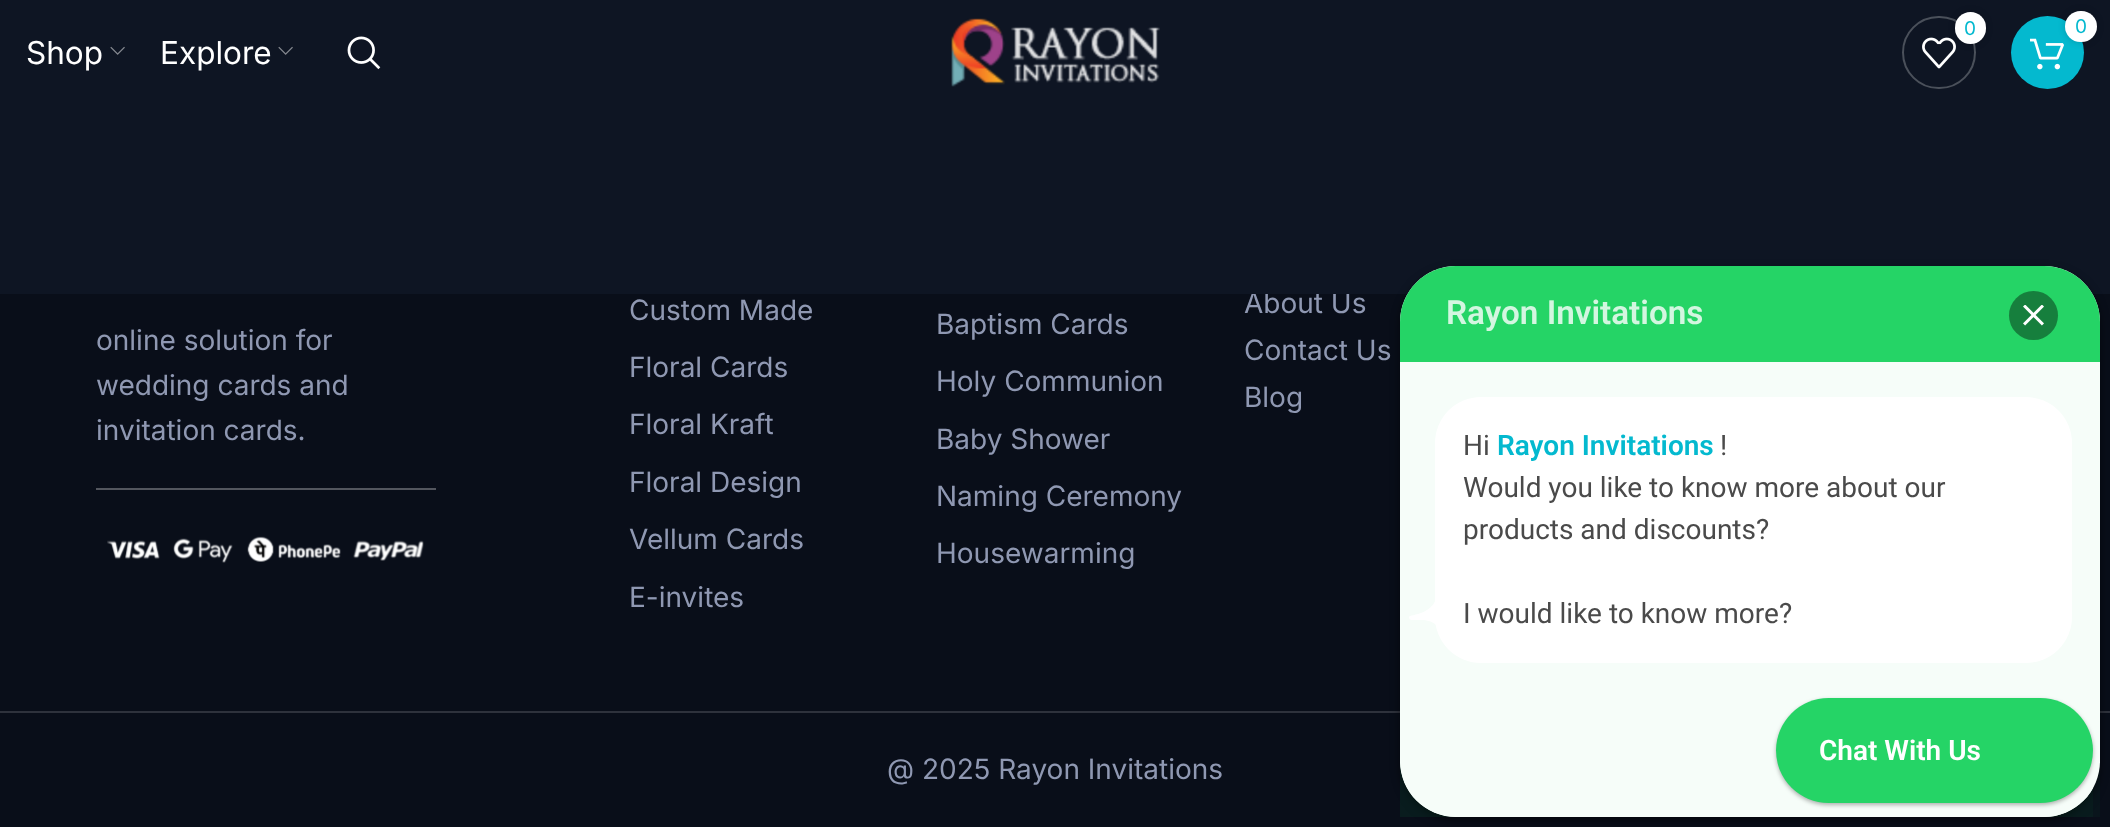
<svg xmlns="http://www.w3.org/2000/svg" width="2110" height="827">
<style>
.a{font:28px Inter;fill:#8f98b2}
.b{font:19px Inter;fill:#04b9cf}
.c{font:31.5px Inter;fill:#fff}
.d{font:600 33.25px Roboto;fill:#d3f6e0}
.e{font:28px Roboto;fill:#4a4a4a}
.f{font:600 28px Roboto;fill:#04b9cf}
.g{font:600 28px Roboto;fill:#fff}
</style>
<defs>
<clipPath id="clip1"><rect x="1400" y="266" width="700" height="551" rx="56"/></clipPath>
</defs>
<rect width="100%" height="100%" fill="#090e19"/>
<path fill="#53565e" d="M96 488h340v2H96z"/>
<image href="6.png" x="107" y="536" width="317" height="27"/>
<path fill="#2e323c" d="M0 711h2110v2H0z"/>
<text class="a" x="96" y="350">online solution for</text>
<text class="a" x="96" y="395">wedding cards and</text>
<text class="a" x="96" y="440">invitation cards.</text>
<text class="a" x="629" y="320">Custom Made</text>
<text class="a" x="629" y="377">Floral Cards</text>
<text class="a" x="629" y="434">Floral Kraft</text>
<text class="a" x="629" y="492">Floral Design</text>
<text class="a" x="629" y="549">Vellum Cards</text>
<text class="a" x="629" y="607">E-invites</text>
<text class="a" x="936" y="334">Baptism Cards</text>
<text class="a" x="936" y="391">Holy Communion</text>
<text class="a" x="936" y="449">Baby Shower</text>
<text class="a" x="936" y="506">Naming Ceremony</text>
<text class="a" x="936" y="563">Housewarming</text>
<text class="a" x="1244" y="313">About Us</text>
<path fill="#0e1523" d="M0 0h2110v294H0z"/>
<circle fill="#04b9cf" cx="2047.5" cy="52.5" r="36.5"/>
<image href="3.png" x="2030" y="38" width="34" height="32"/>
<rect fill="#0000002b" filter="blur(3.5px)" x="2065" y="11" width="32" height="31" rx="15.5"/>
<rect fill="#fff" x="2065" y="11" width="32" height="31" rx="15.5"/>
<text class="b" x="2075" y="33">0</text>
<rect fill="none" stroke="#4a505a" stroke-width="2" x="1903" y="17" width="72" height="71" rx="35.5"/>
<image href="2.png" x="1922" y="37" width="34" height="32"/>
<rect fill="#0000002b" filter="blur(3.5px)" x="1955" y="12" width="31" height="32" rx="15.5"/>
<rect fill="#fff" x="1955" y="12" width="31" height="32" rx="15.5"/>
<text class="b" x="1964" y="35">0</text>
<image href="1.png" x="951" y="18" width="209" height="69"/>
<image href="5.png" x="347" y="36" width="34" height="34"/>
<image href="4.png" x="278" y="46" width="15" height="9"/>
<text class="c" x="160" y="64">Explore</text>
<image href="4.png" x="110" y="46" width="15" height="9"/>
<text class="c" x="26" y="64">Shop</text>
<text class="a" x="1244" y="360">Contact Us</text>
<text class="a" x="1244" y="407">Blog</text>
<text class="a" x="887" y="779">@ 2025 Rayon Invitations</text>
<rect fill="#00000080" filter="blur(5px)" x="1400" y="270" width="700" height="551" rx="56"/>
<rect fill="#fff" x="1400" y="266" width="700" height="551" rx="56"/>
<path fill="#25d466" d="M1456 266h588c31 0 56 25 56 56v40h-700v-40c0-31 25-56 56-56z"/>
<path fill="#25d4660a" d="M1400 362h700v455H1400z"/>
<text class="d" x="1446" y="324">Rayon Invitations</text>
<circle fill="#167f3d" cx="2033.5" cy="315.5" r="24.5"/>
<image href="7.png" x="2023" y="305" width="21" height="21"/>
<rect fill="#fff" x="1435" y="397" width="637" height="266" rx="46"/>
<text class="e" x="1463" y="455">Hi</text>
<text class="f" x="1497" y="455">Rayon Invitations</text>
<text class="e" x="1720" y="455">!</text>
<text class="e" x="1463" y="497">Would you like to know more about our</text>
<text class="e" x="1463" y="539">products and discounts?</text>
<path fill="#fff" d="M1438 632c0-12-13-12-21-12c-4 0-8 1-8-3c0-3 29-1 29-29z"/>
<text class="e" x="1463" y="623">I would like to know more?</text>
<g clip-path="url(#clip1)">
<path fill="#fff" d="M1400 677h693v140h-637c-31 0-56-25-56-56z"/>
</g>
<path fill="#25d4660a" d="M1400 677h693v140H1400z"/>
<rect fill="#0000004d" filter="blur(2px)" x="1776" y="700" width="317" height="105" rx="52.5"/>
<rect fill="#25d466" x="1776" y="698" width="317" height="105" rx="52.5"/>
<text class="g" x="1819" y="760">Chat With Us</text>
</svg>
